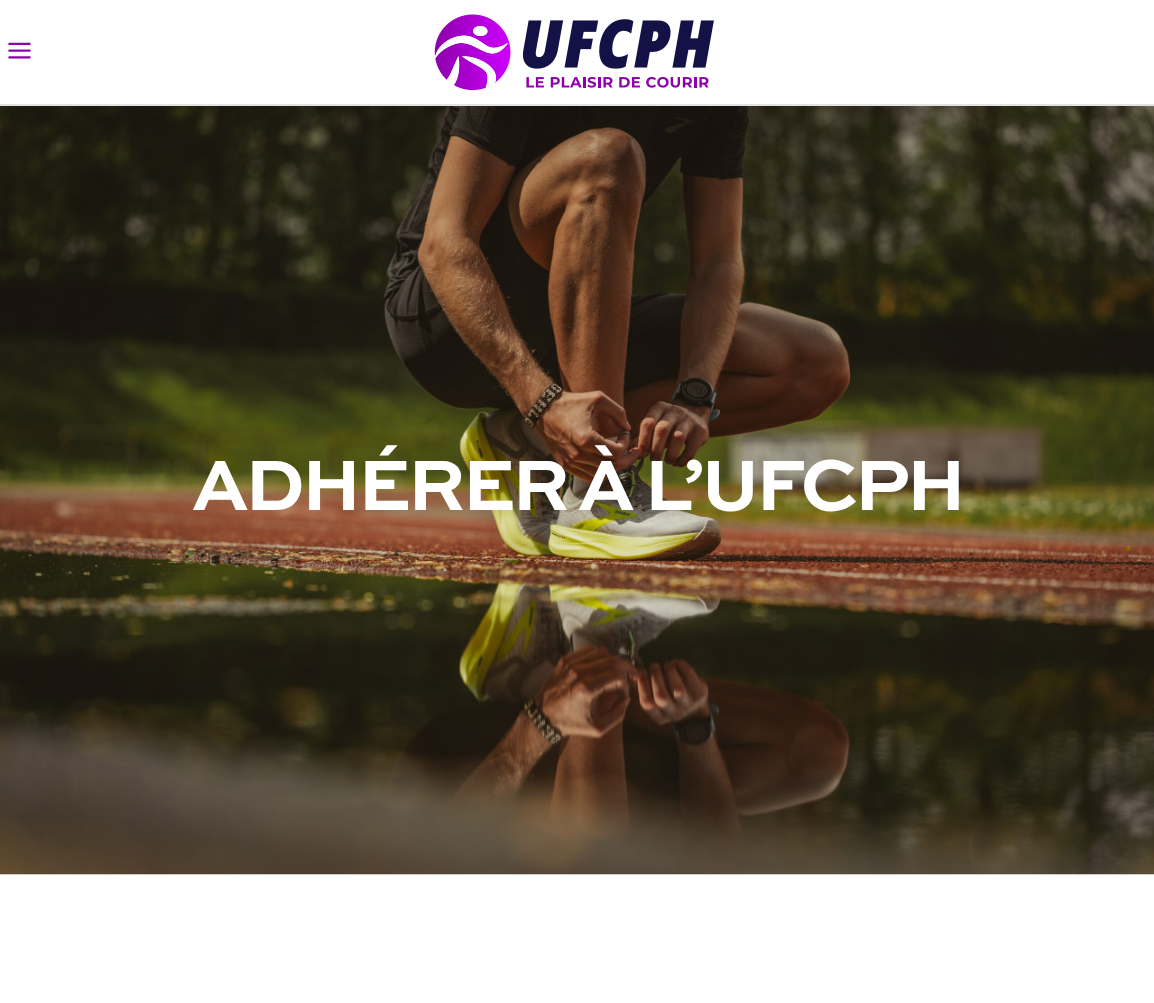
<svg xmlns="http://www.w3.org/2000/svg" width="1154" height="1003">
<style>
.a{font:bold 75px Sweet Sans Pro;letter-spacing:-3.75px;fill:#fff}
</style>
<rect width="100%" height="100%" fill="#fff"/>
<path fill="#e3e3e3" d="M0 104h1154v2H0z"/>
<image href="1.png" x="8" y="42" width="23" height="17"/>
<image href="2.png" x="434" y="14" width="280" height="77"/>
<path fill="#f6f6f6" d="M0 874h1154v1H0z"/>
<image href="3.png" x="0" y="106" width="1154" height="769"/>
<text class="a" x="192" y="510">ADHÉRER À L’UFCPH</text>
</svg>
